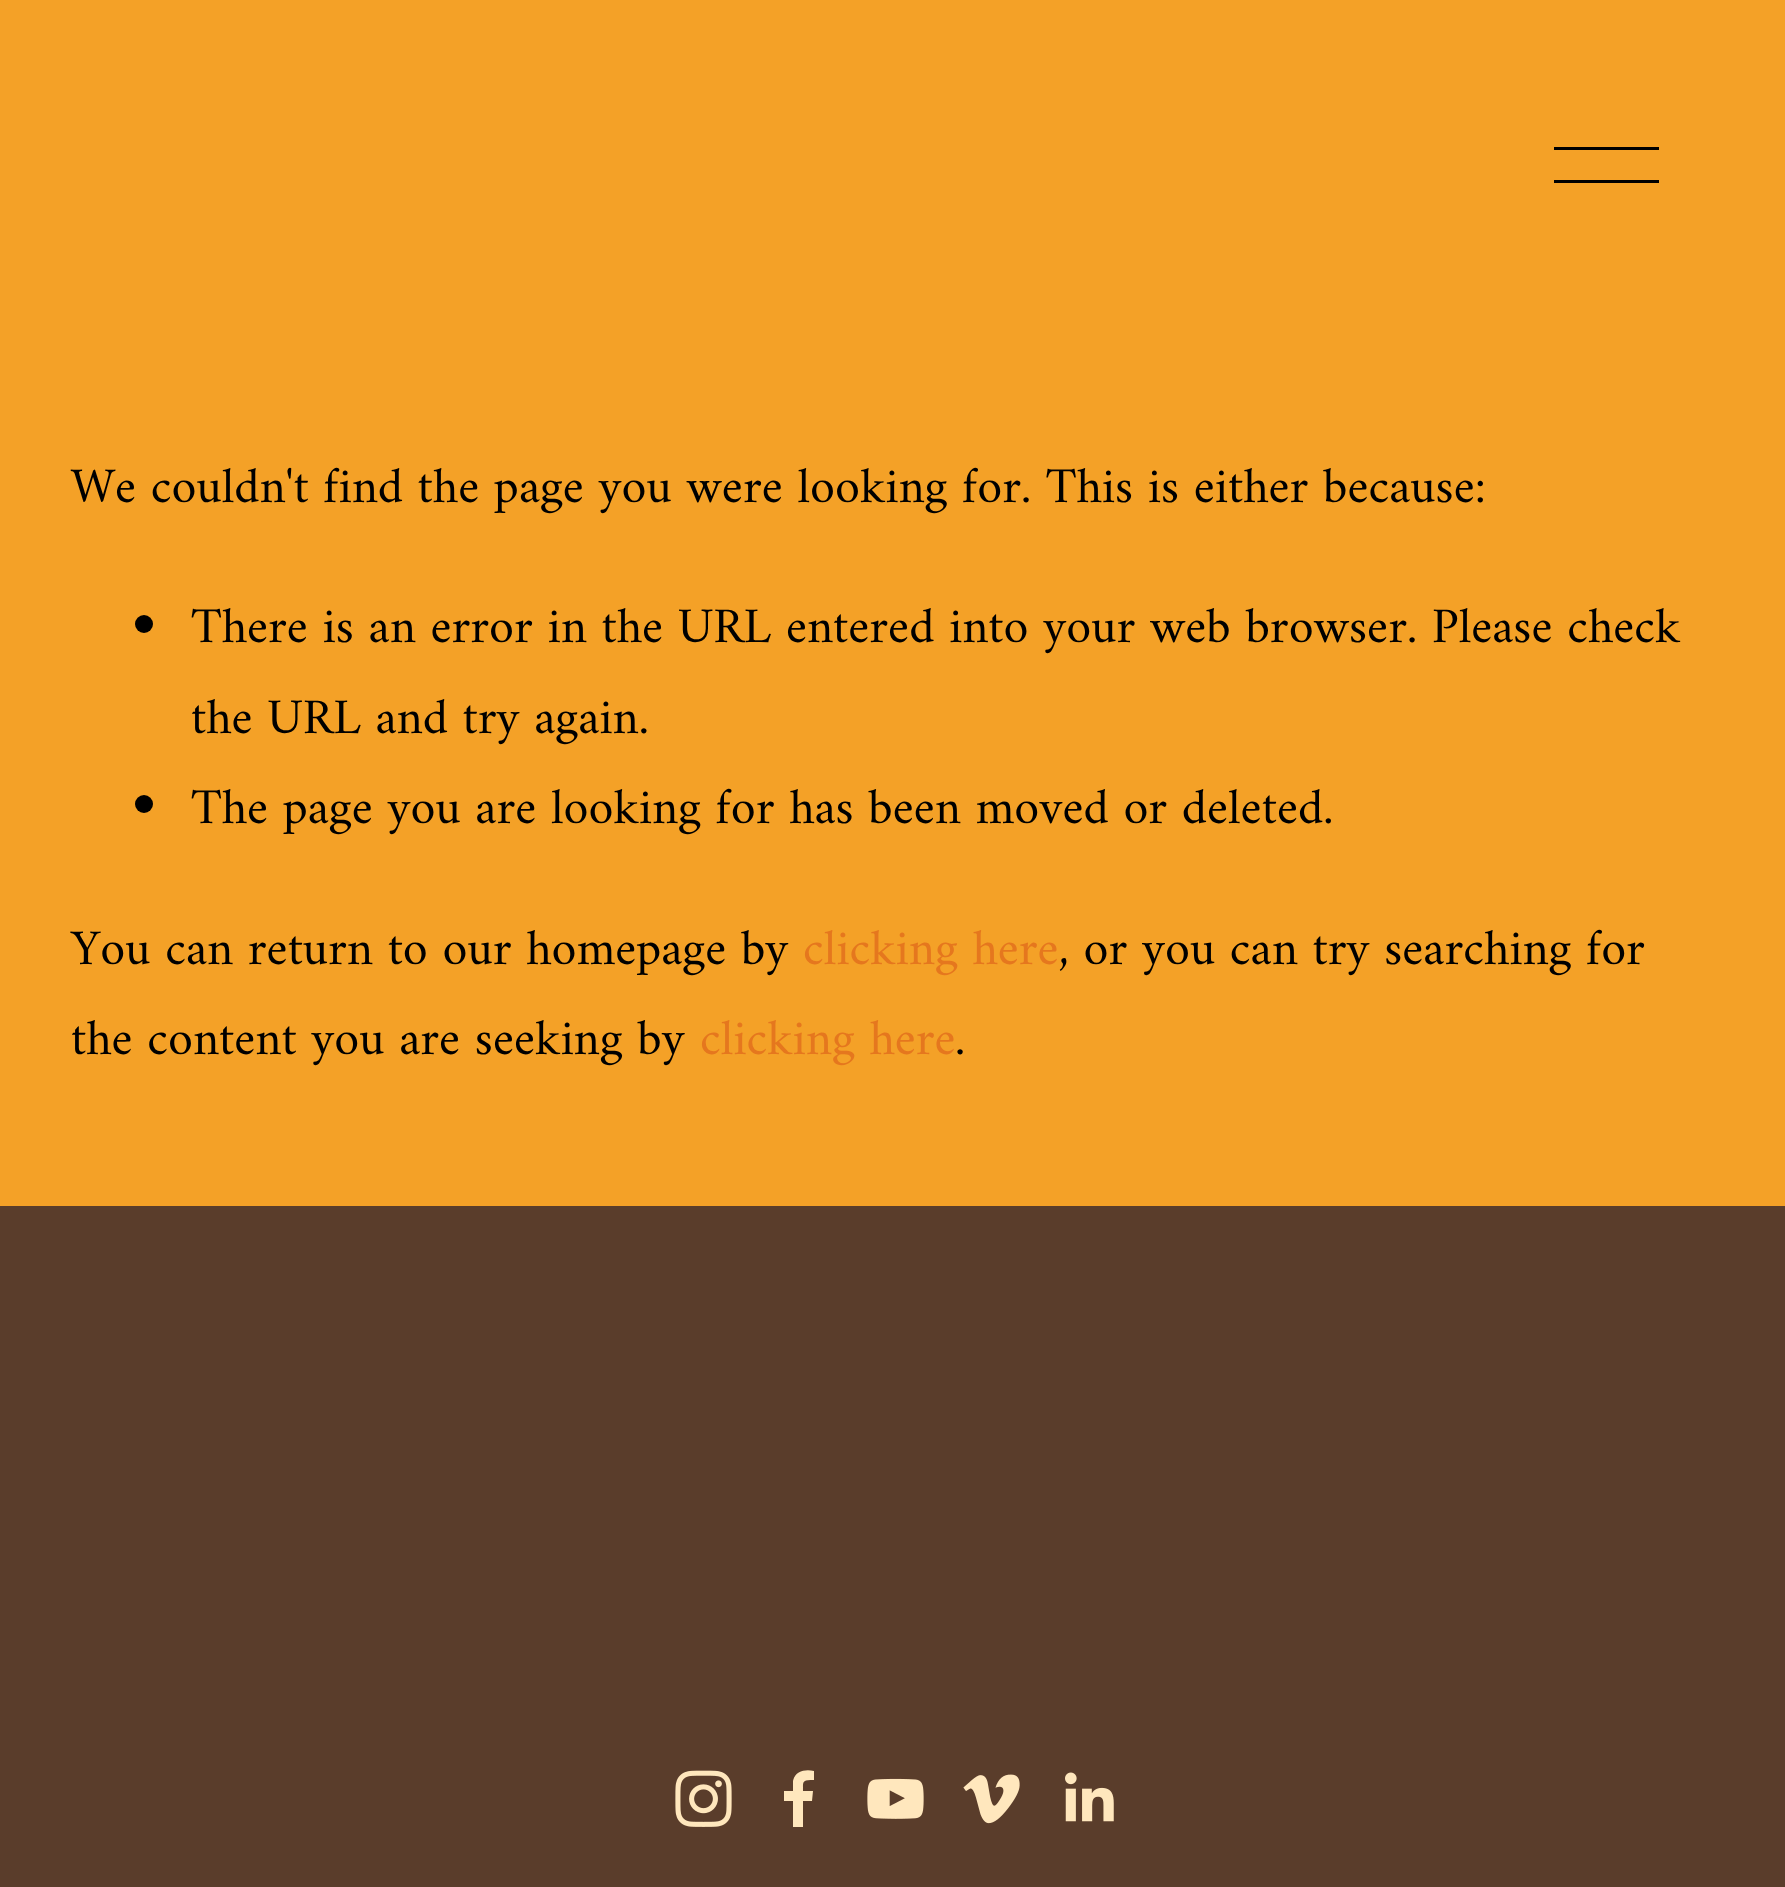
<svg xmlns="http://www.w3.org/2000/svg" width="1785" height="1887">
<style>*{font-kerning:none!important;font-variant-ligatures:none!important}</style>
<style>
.a{font:50.25px Amiri;fill:#000}
.b{font:50.25px Amiri;fill:#e5771e}
</style>
<rect width="100%" height="100%" fill="#f4a127"/>
<path fill="#000" d="M1554 147h105v3H1554z"/>
<path fill="#000" d="M1554 180h105v3H1554z"/>
<circle fill="#000" cx="144" cy="624" r="9"/>
<circle fill="#000" cx="144" cy="804" r="9"/>
<path fill="#5a3d2b" d="M0 1206h1785v681H0z"/>
<image href="1.png" x="675" y="1770" width="57" height="57"/>
<path fill="#ffe7bd" d="M803 1827v-26h9l1-10h-10c0-10-1-11 11-11v-9c-9-2-19 0-21 10v10h-9v10h9v26z"/>
<image href="2.png" x="867" y="1778" width="57" height="41"/>
<image href="3.png" x="963" y="1774" width="57" height="50"/>
<image href="4.png" x="1065" y="1772" width="49" height="50"/>
<text class="a" x="71" y="502">We couldn't find the page you were looking for. This is either because:</text>
<text class="a" x="191" y="642">There is an error in the URL entered into your web browser. Please check</text>
<text class="a" x="191" y="733">the URL and try again.</text>
<text class="a" x="191" y="823">The page you are looking for has been moved or deleted.</text>
<text class="a" x="71" y="964">You can return to our homepage by</text>
<text class="b" x="803" y="964">clicking here</text>
<text class="a" x="1059" y="964">, or you can try searching for</text>
<text class="a" x="71" y="1054">the content you are seeking by</text>
<text class="b" x="700" y="1054">clicking here</text>
<text class="a" x="955" y="1054">.</text>
</svg>
